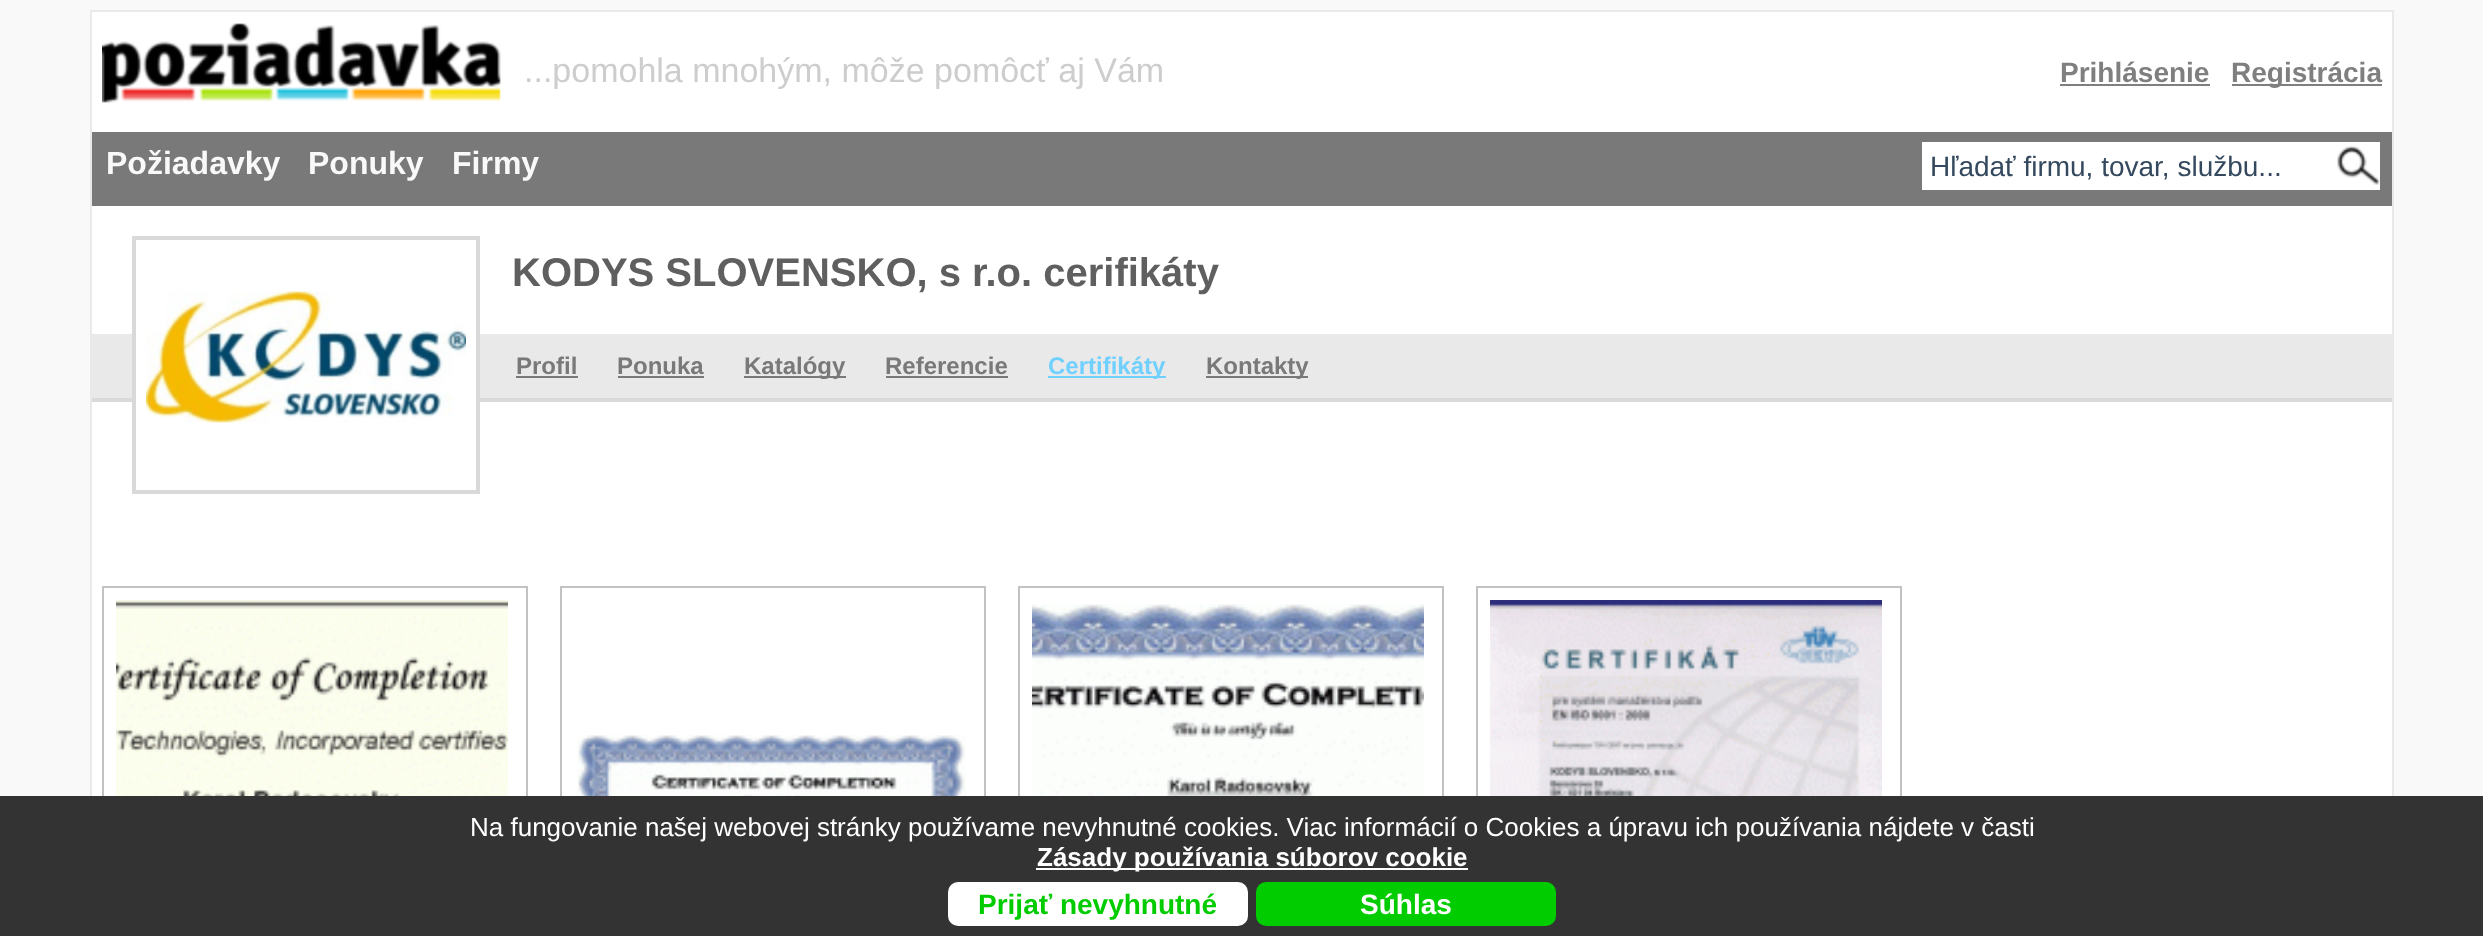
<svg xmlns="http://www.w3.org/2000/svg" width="2483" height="936">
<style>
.a{font:34px Liberation Sans;fill:#cdcdcd}
.b{font:bold 28px Liberation Sans;fill:#7f7f7f}
.c{font:bold 32px Liberation Sans;fill:#f9f9f9}
.d{font:28px Liberation Sans;fill:#34495e}
.e{font:bold 40px Liberation Sans;fill:#5f5f5f}
.f{font:bold 24px Liberation Sans;fill:#797979}
.g{font:bold 24px Liberation Sans;fill:#70d0ff}
.h{font:26px Liberation Sans;fill:#fff}
.i{font:bold 26px Liberation Sans;fill:#fff}
.j{font:bold 28px Liberation Sans;fill:#0c0}
.k{font:bold 28px Liberation Sans;fill:#fff}
</style>
<rect width="100%" height="100%" fill="#f9f9f9"/>
<path fill="#fff" d="M92 12h2300v784H92z"/>
<path fill="none" stroke="#e9e9e9" stroke-width="2" d="M91 11h2302v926H91z"/>
<image href="1.png" x="102" y="23" width="399" height="80"/>
<path fill="#7f7f7f" d="M2060 84h150v2H2060z"/>
<path fill="#7f7f7f" d="M2232 84h150v2H2232z"/>
<path fill="#797979" d="M92 132h2300v74H92z"/>
<path fill="#fff" d="M1922 142h458v48H1922z"/>
<image href="2.png" x="2337" y="146" width="43" height="39"/>
<path fill="#e9e9e9" d="M92 334h2300v64H92z"/>
<path fill="#d9d9d9" d="M92 398h2300v4H92z"/>
<path fill="#fff" d="M136 334h340v68H136z"/>
<path fill="none" stroke="#d9d9d9" stroke-width="4" d="M134 238h344v254H134z"/>
<image href="3.png" x="146" y="291" width="320" height="132"/>
<path fill="#797979" d="M516 376h62v2H516z"/>
<path fill="#797979" d="M618 376h86v2H618z"/>
<path fill="#797979" d="M744 376h102v2H744z"/>
<path fill="#797979" d="M886 376h122v2H886z"/>
<path fill="#70d0ff" d="M1048 376h118v2H1048z"/>
<path fill="#797979" d="M1206 376h102v2H1206z"/>
<path fill="none" stroke="#c2c2c2" stroke-width="2" d="M103 587h424v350H103z"/>
<image href="4.png" x="116" y="600" width="392" height="196"/>
<path fill="none" stroke="#c2c2c2" stroke-width="2" d="M561 587h424v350H561z"/>
<image href="5.png" x="577" y="735" width="389" height="61"/>
<path fill="none" stroke="#c2c2c2" stroke-width="2" d="M1019 587h424v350H1019z"/>
<image href="6.png" x="1032" y="604" width="392" height="192"/>
<path fill="none" stroke="#c2c2c2" stroke-width="2" d="M1477 587h424v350H1477z"/>
<image href="7.png" x="1490" y="600" width="392" height="196"/>
<path fill="#333" d="M0 796h2483v140H0z"/>
<path fill="#fff" d="M1036 868h432v2H1036z"/>
<rect fill="#fff" x="948" y="882" width="300" height="44" rx="10"/>
<rect fill="#0c0" x="1256" y="882" width="300" height="44" rx="10"/>
<text class="a" x="524" y="82">...pomohla mnohým, môže pomôcť aj Vám</text>
<text class="b" x="2060" y="82">Prihlásenie</text>
<text class="b" x="2231" y="82">Registrácia</text>
<text class="c" x="106" y="174">Požiadavky</text>
<text class="c" x="308" y="174">Ponuky</text>
<text class="c" x="452" y="174">Firmy</text>
<text class="d" x="1930" y="176">Hľadať firmu, tovar, službu...</text>
<text class="e" x="512" y="286">KODYS SLOVENSKO, s r.o. cerifikáty</text>
<text class="f" x="516" y="374">Profil</text>
<text class="f" x="617" y="374">Ponuka</text>
<text class="f" x="744" y="374">Katalógy</text>
<text class="f" x="885" y="374">Referencie</text>
<text class="g" x="1048" y="374">Certifikáty</text>
<text class="f" x="1206" y="374">Kontakty</text>
<text class="h" x="470" y="836">Na fungovanie našej webovej stránky používame nevyhnutné cookies. Viac informácií o Cookies a úpravu ich používania nájdete v časti</text>
<text class="i" x="1037" y="866">Zásady používania súborov cookie</text>
<text class="j" x="978" y="914">Prijať nevyhnutné</text>
<text class="k" x="1360" y="914">Súhlas</text>
</svg>
